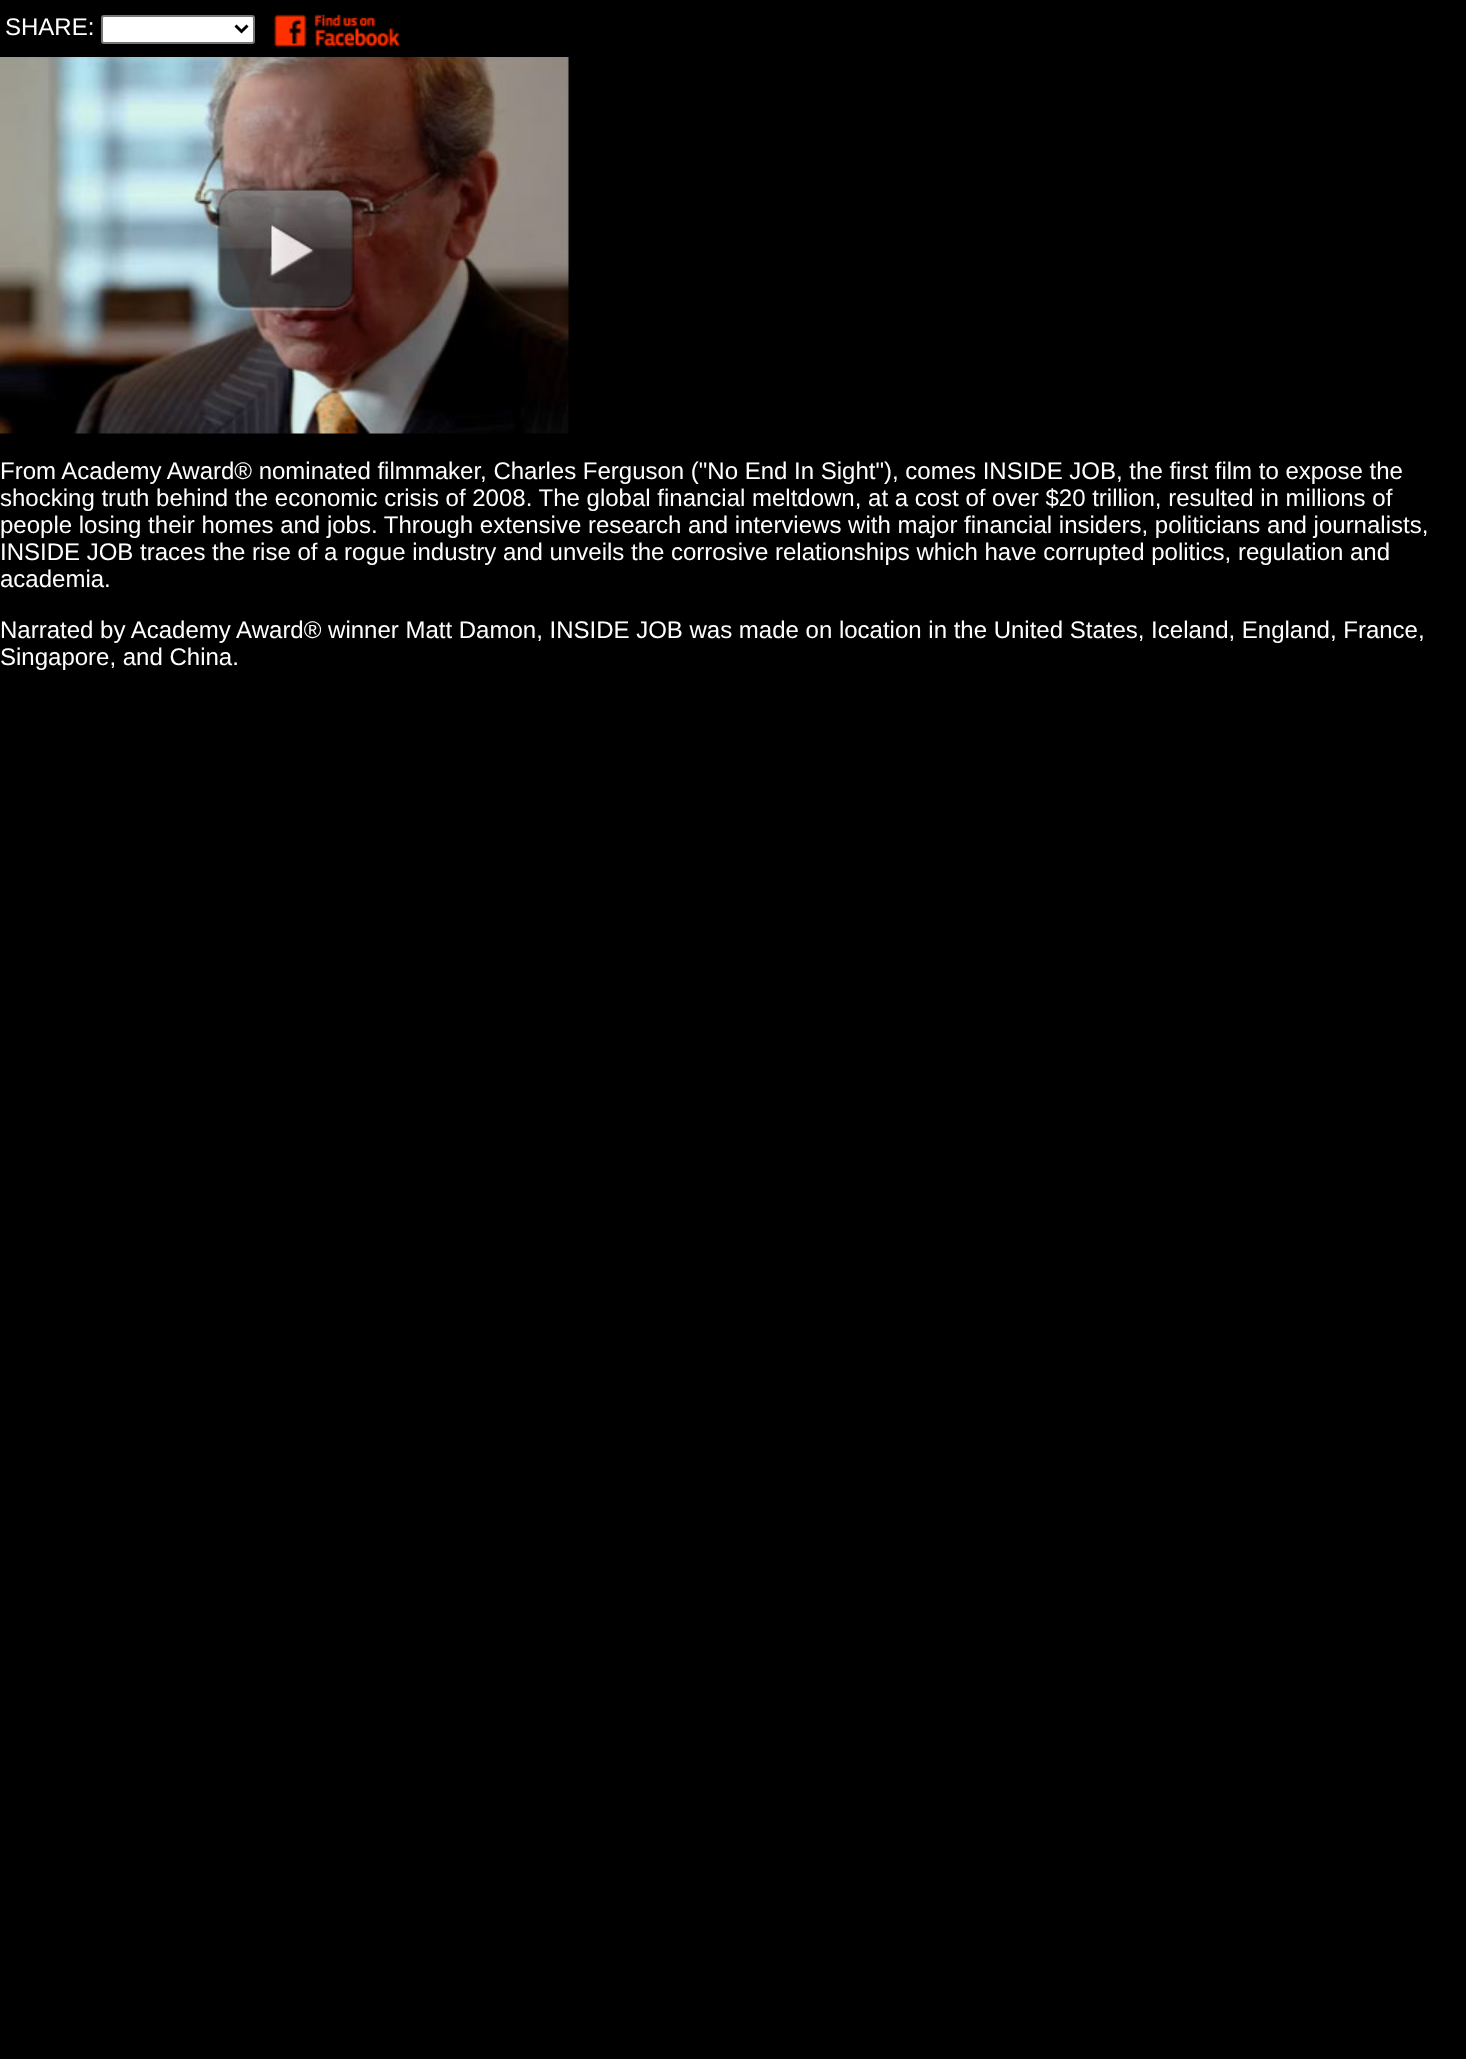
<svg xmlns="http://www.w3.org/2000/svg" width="1466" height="2059">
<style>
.a{font:24px Liberation Sans;fill:#fff}
</style>
<rect width="100%" height="100%" fill="#000"/>
<rect fill="#fff" stroke="#767676" stroke-width="2" x="102" y="16" width="152" height="27" rx="2"/>
<path fill="none" stroke="#000" stroke-width="3" d="M235.5 25.5l6 6l6-6"/>
<image href="1.png" x="274" y="14" width="126" height="33"/>
<image href="2.png" x="0" y="57" width="569" height="377"/>
<text class="a" x="5" y="35">SHARE:</text>
<text class="a" x="0" y="479">From Academy Award® nominated filmmaker, Charles Ferguson ("No End In Sight"), comes INSIDE JOB, the first film to expose the</text>
<text class="a" x="0" y="506">shocking truth behind the economic crisis of 2008. The global financial meltdown, at a cost of over $20 trillion, resulted in millions of</text>
<text class="a" x="0" y="533">people losing their homes and jobs. Through extensive research and interviews with major financial insiders, politicians and journalists,</text>
<text class="a" x="0" y="560">INSIDE JOB traces the rise of a rogue industry and unveils the corrosive relationships which have corrupted politics, regulation and</text>
<text class="a" x="0" y="587">academia.</text>
<text class="a" x="0" y="638">Narrated by Academy Award® winner Matt Damon, INSIDE JOB was made on location in the United States, Iceland, England, France,</text>
<text class="a" x="0" y="665">Singapore, and China.</text>
</svg>
